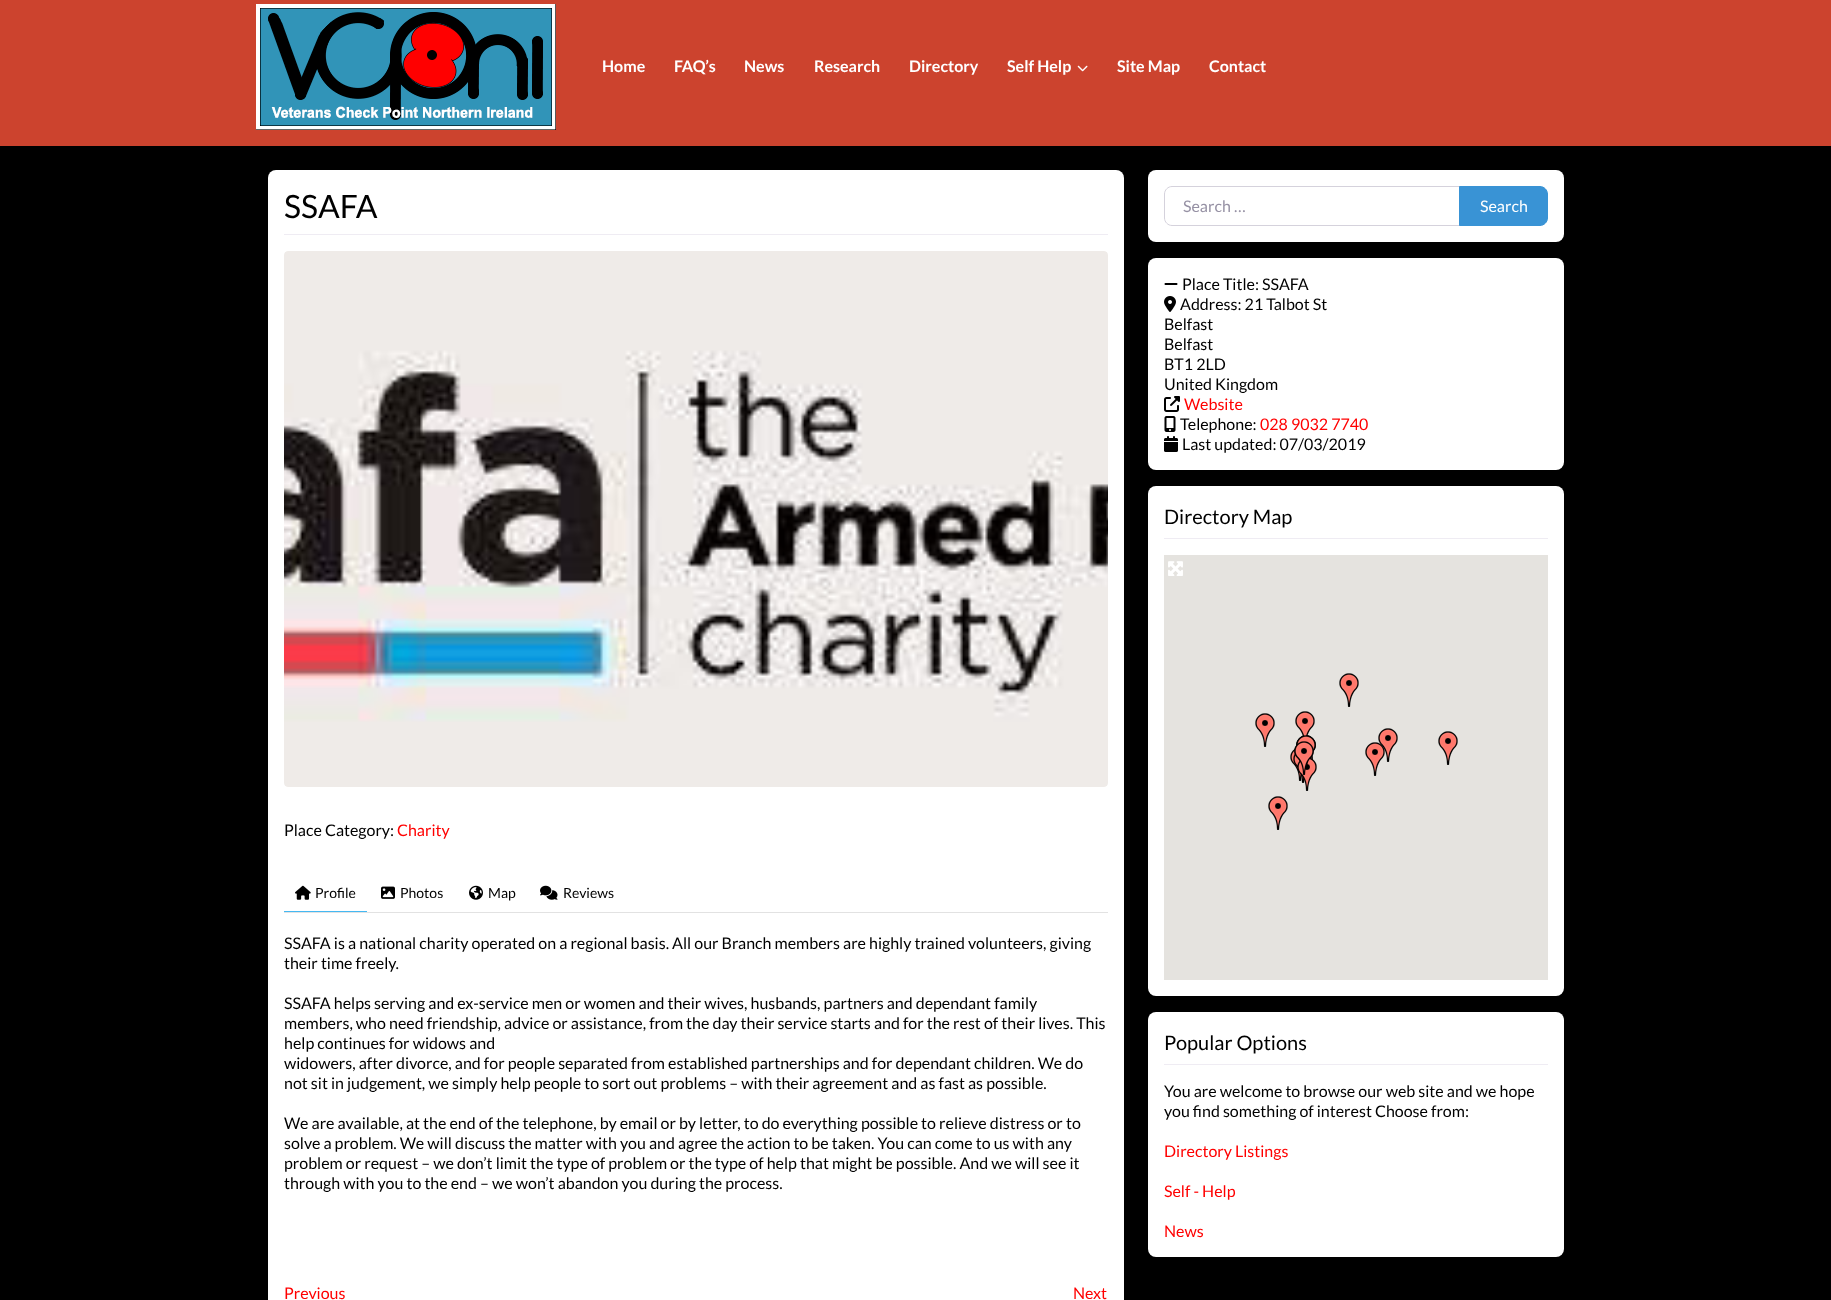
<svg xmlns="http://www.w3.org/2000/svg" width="1831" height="1300">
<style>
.a{font:bold 16px Lato;fill:#fff}
.b{font:32px Lato;fill:#000}
.c{font:16px Lato;fill:#000}
.d{font:16px Lato;fill:#f00}
.e{font:14px Lato;fill:#000}
.f{font:16px Lato;fill:#9691a4}
.g{font:16px Lato;fill:#fff}
.h{font:20px Lato;fill:#000}
</style>
<rect width="100%" height="100%" fill="#000"/>
<path fill="#cc432e" d="M0 0h1831v146H0z"/>
<image href="1.png" x="256" y="4" width="300" height="126"/>
<image href="2.png" x="1077" y="65" width="11" height="7"/>
<rect fill="#fff" x="268" y="170" width="856" height="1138" rx="8"/>
<path fill="#efecf3" d="M284 234h824v1H284z"/>
<image href="3.png" x="284" y="251" width="824" height="536"/>
<path fill="#e2e2e2" d="M284 912h824v1H284z"/>
<path fill="#45b8f2" d="M284 911h83v1H284z"/>
<image href="4.png" x="295" y="885" width="16" height="15"/>
<image href="5.png" x="381" y="886" width="14" height="13"/>
<image href="6.png" x="469" y="885" width="14" height="15"/>
<image href="7.png" x="540" y="885" width="18" height="15"/>
<rect fill="#fff" x="1148" y="170" width="416" height="72" rx="8"/>
<path fill="none" stroke="#d5d2dc" d="M1172 186.5h287.5v39h-287.5c-4 0-7.5-3.5-7.5-7.5v-24c0-4 3.5-7.5 7.5-7.5z"/>
<path fill="#3993d5" stroke="#3993d5" d="M1459.5 186.5h80.5c4 0 7.5 3.5 7.5 7.5v24c0 4-3.5 7.5-7.5 7.5h-80.5z"/>
<rect fill="#fff" x="1148" y="258" width="416" height="212" rx="8"/>
<image href="8.png" x="1164" y="283" width="14" height="2"/>
<image href="9.png" x="1164" y="296" width="12" height="16"/>
<image href="10.png" x="1164" y="396" width="16" height="16"/>
<image href="11.png" x="1164" y="416" width="12" height="16"/>
<image href="12.png" x="1164" y="436" width="14" height="16"/>
<rect fill="#fff" x="1148" y="486" width="416" height="510" rx="8"/>
<path fill="#efecf3" d="M1164 538h384v1H1164z"/>
<path fill="#e5e3df" d="M1164 555h384v425H1164z"/>
<image href="13.png" x="1339" y="673" width="20" height="34"/>
<image href="13.png" x="1255" y="713" width="20" height="34"/>
<image href="23.png" x="1301" y="754" width="12" height="28"/>
<image href="21.png" x="1290" y="748" width="12" height="33"/>
<image href="15.png" x="1296" y="735" width="20" height="17"/>
<image href="16.png" x="1296" y="735" width="20" height="17"/>
<image href="14.png" x="1295" y="711" width="20" height="26"/>
<image href="13.png" x="1378" y="728" width="20" height="34"/>
<image href="13.png" x="1438" y="731" width="20" height="34"/>
<image href="22.png" x="1293" y="753" width="20" height="30"/>
<image href="20.png" x="1294" y="744" width="20" height="18"/>
<image href="24.png" x="1297" y="757" width="20" height="34"/>
<image href="17.png" x="1296" y="735" width="20" height="32"/>
<image href="18.png" x="1294" y="741" width="20" height="34"/>
<image href="19.png" x="1365" y="742" width="20" height="34"/>
<image href="13.png" x="1268" y="796" width="20" height="34"/>
<image href="25.png" x="1168" y="561" width="15" height="15"/>
<rect fill="#fff" x="1148" y="1012" width="416" height="245" rx="8"/>
<path fill="#efecf3" d="M1164 1064h384v1H1164z"/>
<text class="a" x="602" y="72">Home</text>
<text class="a" x="674" y="72">FAQ’s</text>
<text class="a" x="744" y="72">News</text>
<text class="a" x="814" y="72">Research</text>
<text class="a" x="909" y="72">Directory</text>
<text class="a" x="1007" y="72">Self Help</text>
<text class="a" x="1117" y="72">Site Map</text>
<text class="a" x="1209" y="72">Contact</text>
<text class="b" x="284" y="218">SSAFA</text>
<text class="c" x="284" y="836">Place Category:</text>
<text class="d" x="397" y="836">Charity</text>
<text class="e" x="315" y="898">Profile</text>
<text class="e" x="400" y="898">Photos</text>
<text class="e" x="488" y="898">Map</text>
<text class="e" x="563" y="898">Reviews</text>
<text class="c" x="284" y="949">SSAFA is a national charity operated on a regional basis. All our Branch members are highly trained volunteers, giving</text>
<text class="c" x="284" y="969">their time freely.</text>
<text class="c" x="284" y="1009">SSAFA helps serving and ex-service men or women and their wives, husbands, partners and dependant family</text>
<text class="c" x="284" y="1029">members, who need friendship, advice or assistance, from the day their service starts and for the rest of their lives. This</text>
<text class="c" x="284" y="1049">help continues for widows and</text>
<text class="c" x="284" y="1069">widowers, after divorce, and for people separated from established partnerships and for dependant children. We do</text>
<text class="c" x="284" y="1089">not sit in judgement, we simply help people to sort out problems – with their agreement and as fast as possible.</text>
<text class="c" x="284" y="1129">We are available, at the end of the telephone, by email or by letter, to do everything possible to relieve distress or to</text>
<text class="c" x="284" y="1149">solve a problem. We will discuss the matter with you and agree the action to be taken. You can come to us with any</text>
<text class="c" x="284" y="1169">problem or request – we don’t limit the type of problem or the type of help that might be possible. And we will see it</text>
<text class="c" x="284" y="1189">through with you to the end – we won’t abandon you during the process.</text>
<text class="d" x="284" y="1299">Previous</text>
<text class="d" x="1073" y="1299">Next</text>
<text class="f" x="1183" y="212">Search …</text>
<text class="g" x="1480" y="212">Search</text>
<text class="c" x="1182" y="290">Place Title: SSAFA</text>
<text class="c" x="1180" y="310">Address: 21 Talbot St</text>
<text class="c" x="1164" y="330">Belfast</text>
<text class="c" x="1164" y="350">Belfast</text>
<text class="c" x="1164" y="370">BT1 2LD</text>
<text class="c" x="1164" y="390">United Kingdom</text>
<text class="d" x="1184" y="410">Website</text>
<text class="c" x="1180" y="430">Telephone:</text>
<text class="d" x="1260" y="430">028 9032 7740</text>
<text class="c" x="1182" y="450">Last updated: 07/03/2019</text>
<text class="h" x="1164" y="524">Directory Map</text>
<text class="h" x="1164" y="1050">Popular Options</text>
<text class="c" x="1164" y="1097">You are welcome to browse our web site and we hope</text>
<text class="c" x="1164" y="1117">you find something of interest Choose from:</text>
<text class="d" x="1164" y="1157">Directory Listings</text>
<text class="d" x="1164" y="1197">Self - Help</text>
<text class="d" x="1164" y="1237">News</text>
</svg>
